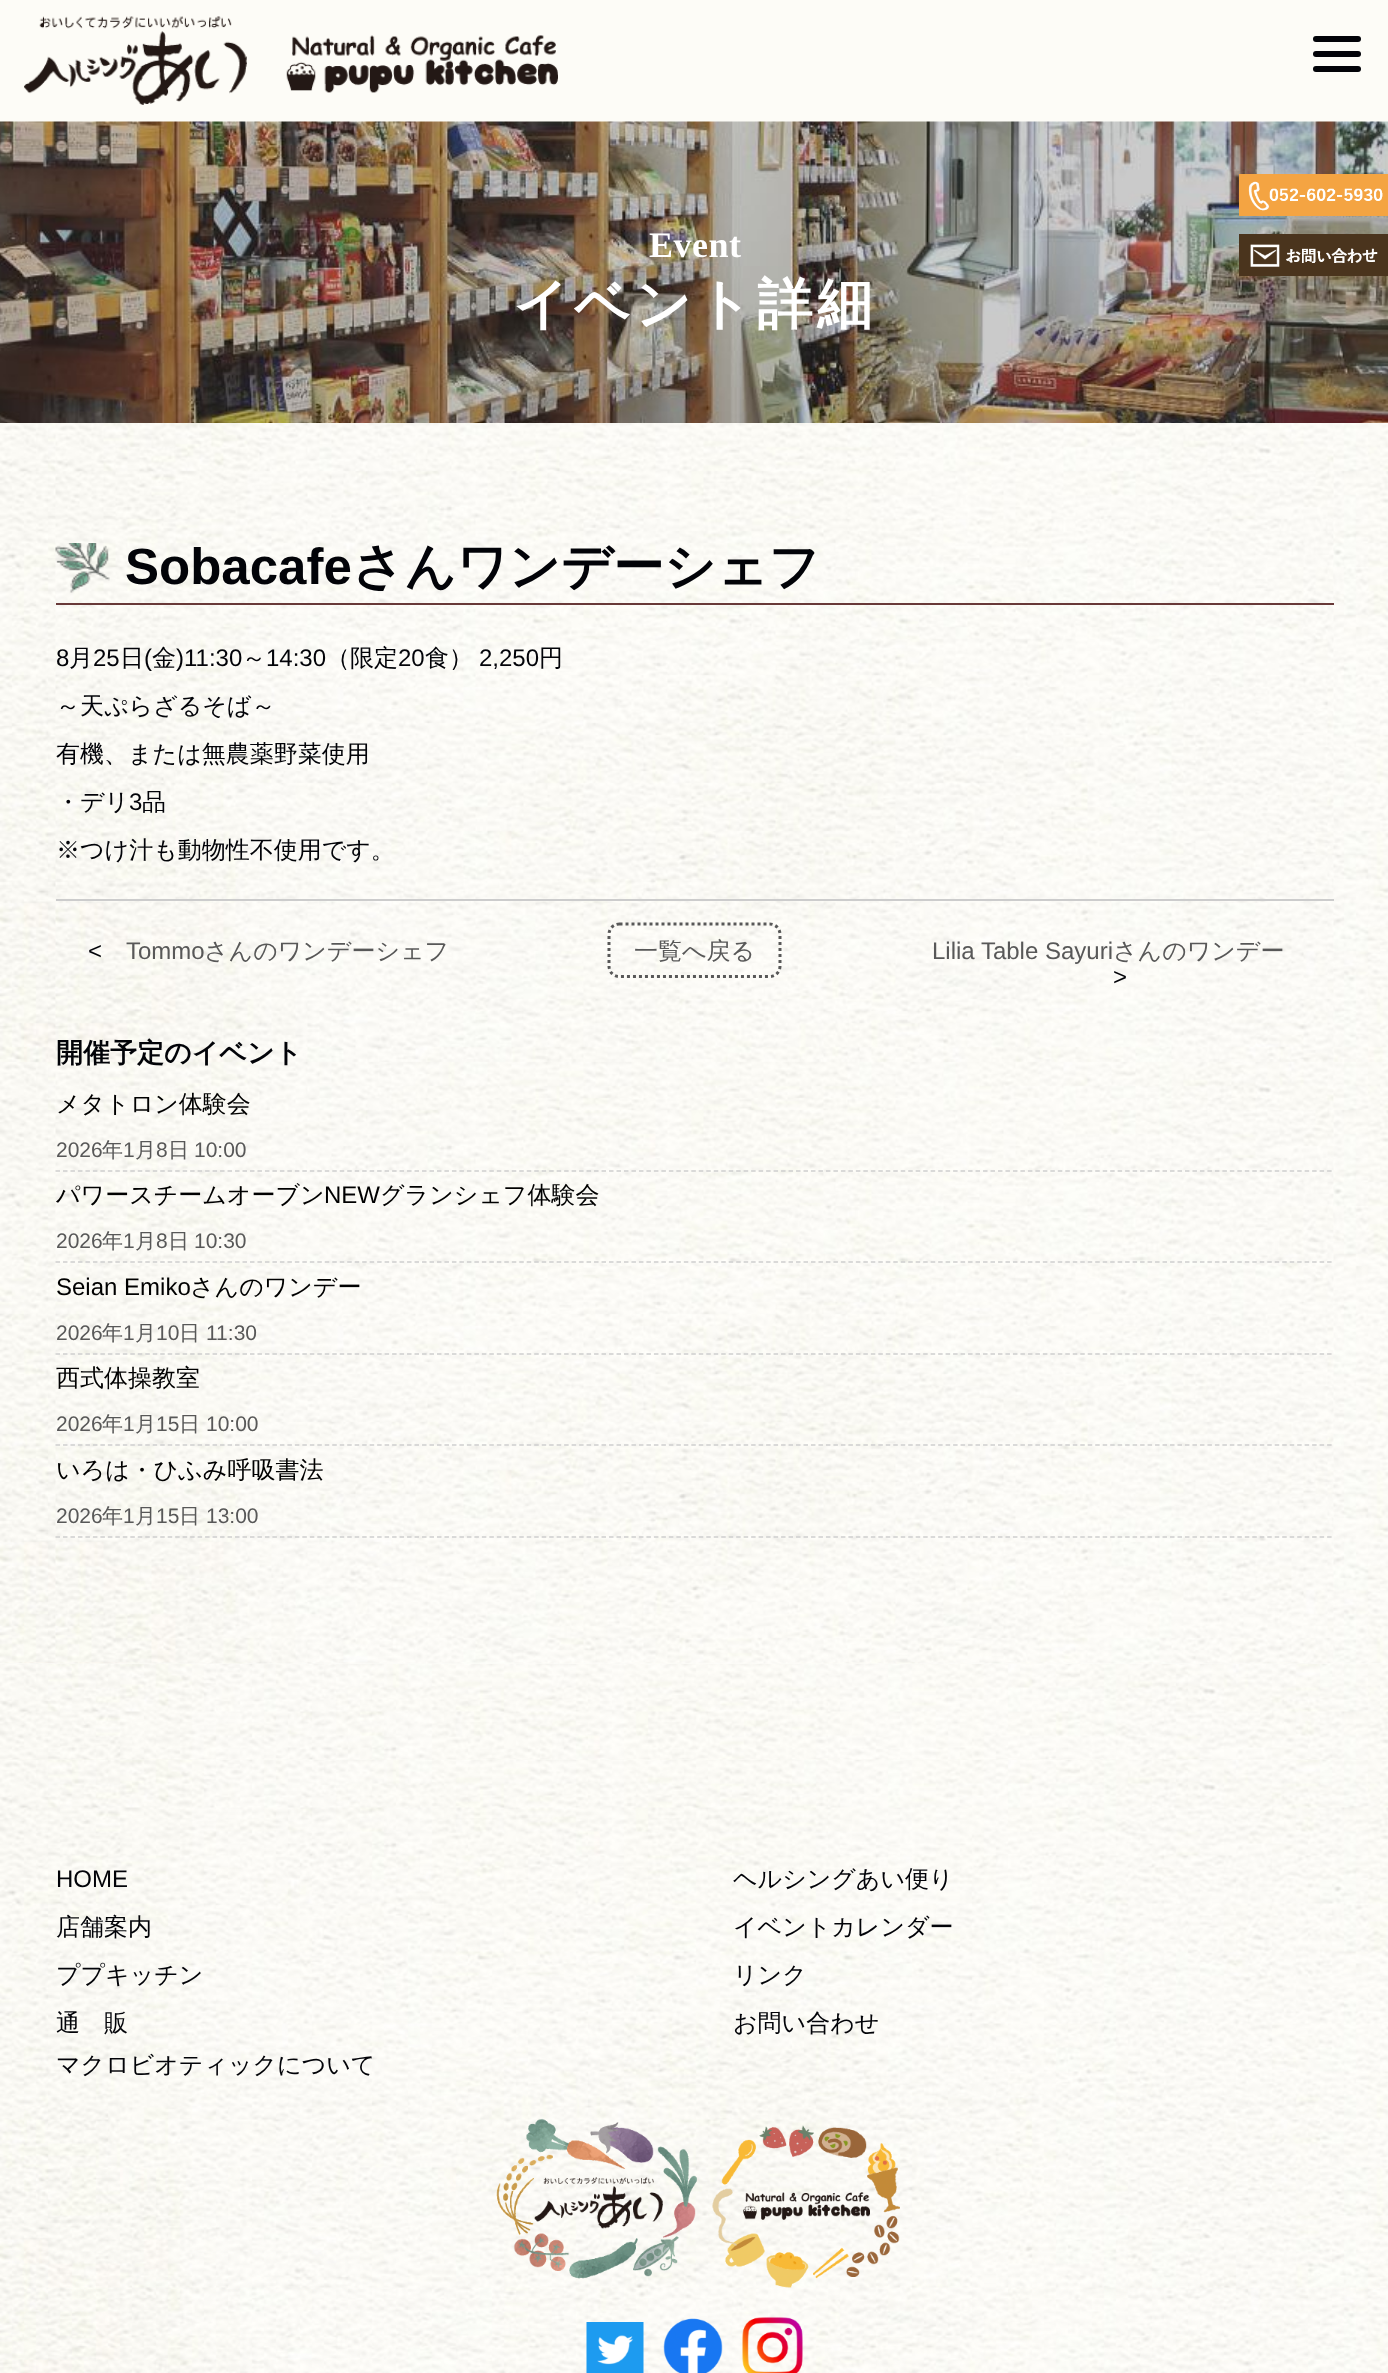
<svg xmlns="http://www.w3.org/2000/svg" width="1388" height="2373">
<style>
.a{font:bold 36px Liberation Serif;letter-spacing:0.5px;fill:#fff}
.b{font:bold 55.25px WenQuanYi Zen Hei;letter-spacing:4.5px;fill:#fff}
.c{font:bold 51px Liberation Sans;fill:#020308}
.d{font:bold 51px WenQuanYi Zen Hei;fill:#020308}
.e{font:24px Liberation Sans;fill:#020308}
.f{font:500 24px WenQuanYi Zen Hei;fill:#020308}
.g{font:24px Liberation Sans;fill:#585858}
.h{font:500 24px WenQuanYi Zen Hei;fill:#585858}
.i{font:bold 27px WenQuanYi Zen Hei;fill:#020308}
.j{font:500 24px WenQuanYi Zen Hei;fill:#000}
.k{font:21px Liberation Sans;fill:#585858}
.l{font:500 21px WenQuanYi Zen Hei;fill:#585858}
.m{font:24px Liberation Sans;fill:#000}
</style>
<rect width="100%" height="100%" fill="#fff"/>
<path fill="#fdfcf7" d="M0 0h1388v122H0z"/>
<image href="1.png" x="24" y="16" width="534" height="89"/>
<rect fill="#020308" x="1313" y="36" width="48" height="6" rx="3"/>
<rect fill="#020308" x="1313" y="51" width="48" height="6" rx="3"/>
<rect fill="#020308" x="1313" y="66" width="48" height="6" rx="3"/>
<image href="2.png" x="0" y="121" width="1388" height="302"/>
<image href="3.png" x="0" y="423" width="1388" height="1241"/>
<image href="6.png" x="0" y="1663" width="1388" height="97"/>
<image href="4.png" x="55" y="423" width="1279" height="1241"/>
<path fill="#683938" d="M56 603h1278v2H56z"/>
<image href="5.png" x="55" y="543" width="55" height="50"/>
<path fill="#ccc" d="M56 899h1278v2H56z"/>
<path fill="none" stroke="#585858" stroke-width="3" stroke-dasharray="3 3" d="M619.5 924h150c6 0 10.5 4.5 10.5 10.5v31.5c0 6-4.5 10.5-10.5 10.5h-150c-6 0-10.5-4.5-10.5-10.5v-31.5c0-6 4.5-10.5 10.5-10.5z"/>
<path fill="none" stroke="#cecece" stroke-width="1.5" stroke-dasharray="4.5 2.98" d="M55.5 1171h1278"/>
<path fill="none" stroke="#cecece" stroke-width="1.5" stroke-dasharray="4.5 2.98" d="M55.5 1262h1278"/>
<path fill="none" stroke="#cecece" stroke-width="1.5" stroke-dasharray="4.5 2.98" d="M55.5 1354h1278"/>
<path fill="none" stroke="#cecece" stroke-width="1.5" stroke-dasharray="4.5 2.98" d="M55.5 1445h1278"/>
<path fill="none" stroke="#cecece" stroke-width="1.5" stroke-dasharray="4.5 2.98" d="M55.5 1537h1278"/>
<image href="7.png" x="1239" y="174" width="149" height="42"/>
<image href="8.png" x="1239" y="234" width="149" height="42"/>
<image href="9.png" x="0" y="1759" width="1388" height="614"/>
<image href="10.png" x="496" y="2118" width="201" height="161"/>
<image href="11.png" x="712" y="2125" width="188" height="163"/>
<image href="12.png" x="586" y="2322" width="58" height="51"/>
<image href="13.png" x="663" y="2318" width="60" height="55"/>
<image href="14.png" x="742" y="2317" width="61" height="56"/>
<text class="a" x="649" y="257">Event</text>
<text class="b" x="513" y="323">イベント詳細</text>
<text class="c" x="125" y="584">Sobacafe</text>
<text class="d" x="352" y="584">さんワンデーシェフ</text>
<text class="e" x="56" y="666">8</text>
<text class="f" x="69" y="666">月</text>
<text class="e" x="93" y="666">25</text>
<text class="f" x="120" y="666">日</text>
<text class="e" x="144" y="666">(</text>
<text class="f" x="152" y="666">金</text>
<text class="e" x="176" y="666">)11:30</text>
<text class="f" x="242" y="666">～</text>
<text class="e" x="266" y="666">14:30</text>
<text class="f" x="326" y="666">（限定</text>
<text class="e" x="398" y="666">20</text>
<text class="f" x="425" y="666">食）</text>
<text class="e" x="479" y="666">2,250</text>
<text class="f" x="539" y="666">円</text>
<text class="f" x="56" y="714">～天ぷらざるそば～</text>
<text class="f" x="56" y="762">有機、または無農薬野菜使用</text>
<text class="f" x="56" y="810">・デリ</text>
<text class="e" x="129" y="810">3</text>
<text class="f" x="142" y="810">品</text>
<text class="f" x="56" y="858">※つけ汁も動物性不使用です。</text>
<text class="e" x="88" y="959">&lt;</text>
<text class="g" x="126" y="959">Tommo</text>
<text class="h" x="204" y="959">さんのワンデーシェフ</text>
<text class="h" x="634" y="959">一覧へ戻る</text>
<text class="g" x="932" y="959">Lilia Table Sayuri</text>
<text class="h" x="1113" y="959">さんのワンデー</text>
<text class="e" x="1113" y="985">&gt;</text>
<text class="i" x="56" y="1062">開催予定のイベント</text>
<text class="j" x="56" y="1112">メタトロン体験会</text>
<text class="k" x="56" y="1157">2026</text>
<text class="l" x="102" y="1157">年</text>
<text class="k" x="123" y="1157">1</text>
<text class="l" x="135" y="1157">月</text>
<text class="k" x="156" y="1157">8</text>
<text class="l" x="168" y="1157">日</text>
<text class="k" x="194" y="1157">10:00</text>
<text class="j" x="56" y="1203">パワースチームオーブン</text>
<text class="m" x="324" y="1203">NEW</text>
<text class="j" x="380" y="1203">グランシェフ体験会</text>
<text class="k" x="56" y="1248">2026</text>
<text class="l" x="102" y="1248">年</text>
<text class="k" x="123" y="1248">1</text>
<text class="l" x="135" y="1248">月</text>
<text class="k" x="156" y="1248">8</text>
<text class="l" x="168" y="1248">日</text>
<text class="k" x="194" y="1248">10:30</text>
<text class="m" x="56" y="1295">Seian Emiko</text>
<text class="j" x="190" y="1295">さんのワンデー</text>
<text class="k" x="56" y="1340">2026</text>
<text class="l" x="102" y="1340">年</text>
<text class="k" x="123" y="1340">1</text>
<text class="l" x="135" y="1340">月</text>
<text class="k" x="156" y="1340">10</text>
<text class="l" x="179" y="1340">日</text>
<text class="k" x="206" y="1340">11:30</text>
<text class="j" x="56" y="1386">西式体操教室</text>
<text class="k" x="56" y="1431">2026</text>
<text class="l" x="102" y="1431">年</text>
<text class="k" x="123" y="1431">1</text>
<text class="l" x="135" y="1431">月</text>
<text class="k" x="156" y="1431">15</text>
<text class="l" x="179" y="1431">日</text>
<text class="k" x="206" y="1431">10:00</text>
<text class="j" x="56" y="1478">いろは・ひふみ呼吸書法</text>
<text class="k" x="56" y="1523">2026</text>
<text class="l" x="102" y="1523">年</text>
<text class="k" x="123" y="1523">1</text>
<text class="l" x="135" y="1523">月</text>
<text class="k" x="156" y="1523">15</text>
<text class="l" x="179" y="1523">日</text>
<text class="k" x="206" y="1523">13:00</text>
<text class="e" x="56" y="1887">HOME</text>
<text class="f" x="56" y="1935">店舗案内</text>
<text class="f" x="56" y="1983">ププキッチン</text>
<text class="f" x="56" y="2031">通　販</text>
<text class="f" x="56" y="2073">マクロビオティックについて</text>
<text class="f" x="733" y="1887">ヘルシングあい便り</text>
<text class="f" x="733" y="1935">イベントカレンダー</text>
<text class="f" x="733" y="1983">リンク</text>
<text class="f" x="733" y="2031">お問い合わせ</text>
</svg>
